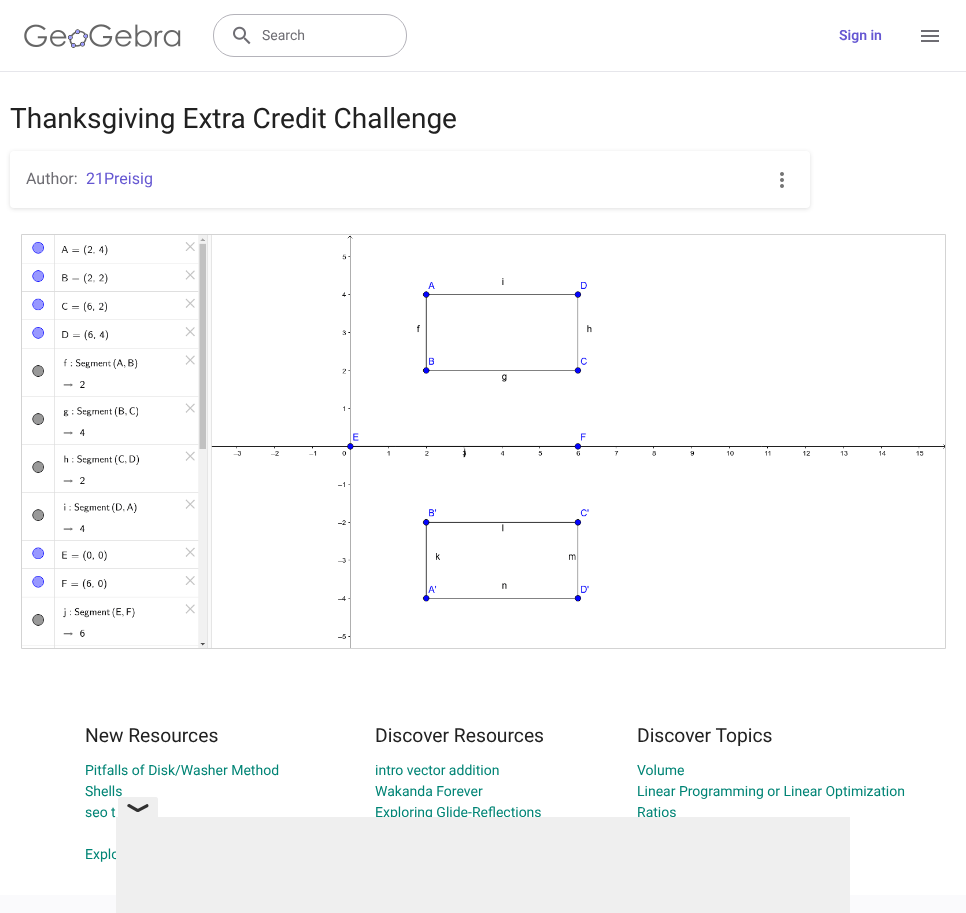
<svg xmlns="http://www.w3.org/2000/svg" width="966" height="913">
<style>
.a{font:14px Roboto;fill:#6e6d73}
.b{font:600 14px Roboto;fill:#6557d2}
.c{font:28px Roboto;fill:#212121}
.d{font:16px Roboto;fill:#6e6d73}
.e{font:16px Roboto;fill:#6557d2}
.f{font:19.25px Roboto;fill:#212121}
.g{font:14px Roboto;fill:#008475}
</style>
<rect width="100%" height="100%" fill="#fff"/>
<path fill="#e6e6eb" d="M0 71h966v1H0z"/>
<image href="1.png" x="24" y="24" width="157" height="24"/>
<rect fill="none" stroke="#b4b3ba" x="213.5" y="14.5" width="193" height="42" rx="20.5"/>
<image href="2.png" x="233" y="26" width="18" height="19"/>
<image href="3.png" x="921" y="30" width="18" height="12"/>
<rect fill="#1c1c1f24" filter="blur(2px)" x="10" y="152" width="800" height="57" rx="4"/>
<rect fill="#fff" x="10" y="151" width="800" height="57" rx="4"/>
<image href="4.png" x="780" y="172" width="4" height="16"/>
<image href="5.png" x="22" y="235" width="923" height="413"/>
<path fill="none" stroke="#d3d3d3" d="M21.5 234.5h924v414H21.5z"/>
<path fill="#fafafc" d="M0 895h966v18H0z"/>
<path fill="#efefef" d="M120 797h36c1 0 2 1 2 2v18h-40v-18c0-1 1-2 2-2z"/>
<path fill="#313131" d="M129.5 804l9.5 5.5c.5 1.5-1 3-2 2.5l-9.5-5.5c-1-1.5 1-3 2-2.5z"/>
<path fill="#313131" d="M137.5 809l9.5-5c1.5 0 2 2 1 3l-9.5 5c-1.5 0-2-2-1-3z"/>
<text class="a" x="262" y="40">Search</text>
<text class="b" x="839" y="40">Sign in</text>
<text class="c" x="10" y="128">Thanksgiving Extra Credit Challenge</text>
<text class="d" x="26" y="184">Author:</text>
<text class="e" x="86" y="184">21Preisig</text>
<text class="f" x="85" y="742">New Resources</text>
<text class="g" x="85" y="775">Pitfalls of Disk/Washer Method</text>
<text class="g" x="85" y="796">Shells</text>
<text class="g" x="85" y="817">seo t</text>
<text class="g" x="85" y="859">Explo</text>
<text class="f" x="375" y="742">Discover Resources</text>
<text class="g" x="375" y="775">intro vector addition</text>
<text class="g" x="375" y="796">Wakanda Forever</text>
<text class="g" x="375" y="817">Exploring Glide-Reflections</text>
<text class="f" x="637" y="742">Discover Topics</text>
<text class="g" x="637" y="775">Volume</text>
<text class="g" x="637" y="796">Linear Programming or Linear Optimization</text>
<text class="g" x="637" y="817">Ratios</text>
<path fill="#efefef" d="M116 817h734v96H116z"/>
</svg>
